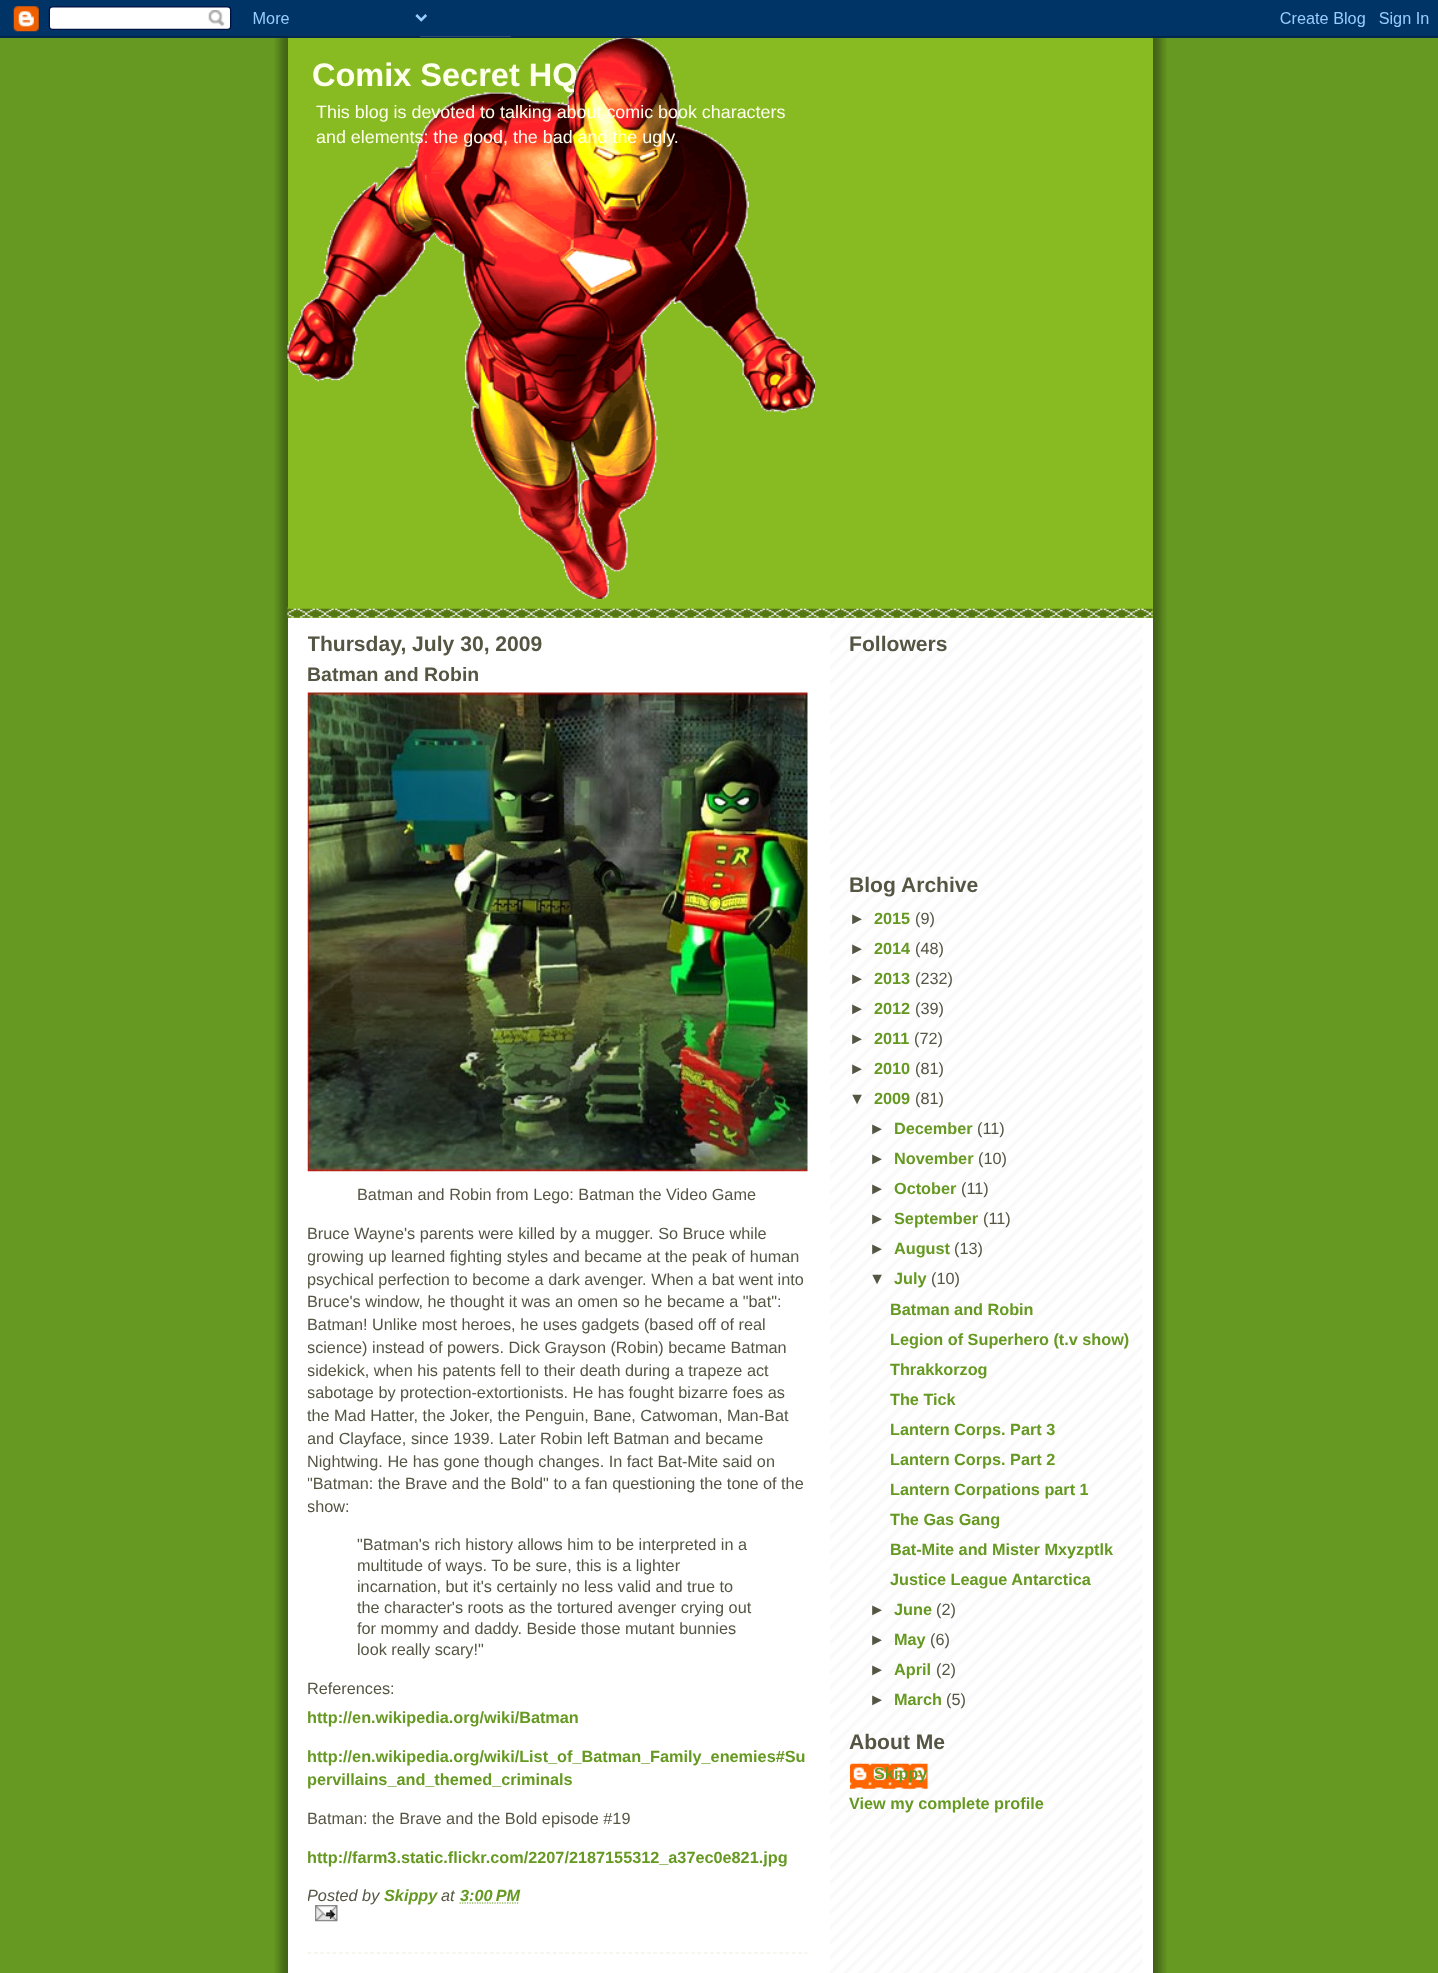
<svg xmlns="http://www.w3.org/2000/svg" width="1438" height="1973">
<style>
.a{font:bold 32.5px Liberation Sans;fill:#ffe}
.b{font:17.9px Liberation Sans;fill:#ffe}
.c{font:bold 21.1px Liberation Sans;fill:#554}
.d{font:bold 19.5px Liberation Sans;fill:#554}
.e{font:16.25px Liberation Sans;fill:#554}
.f{font:bold 16.25px Liberation Sans;fill:#692}
.g{font:italic 16.25px Liberation Sans;fill:#554}
.h{font:italic bold 16.25px Liberation Sans;fill:#692}
.i{font:bold 16.25px Liberation Sans;fill:#554}
</style>
<defs>
<clipPath id="clip1"><path d="M308 618h500v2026H308z"/></clipPath>
</defs>
<rect width="100%" height="100%" fill="#692"/>
<image href="1.png" x="274" y="36" width="893" height="1937"/>
<image href="2.png" x="0" y="0" width="1438" height="38"/>
<path fill="#fff" d="M288 618h865v1355H288z"/>
<image href="3.png" x="830" y="618" width="323" height="1355"/>
<path fill="#8b2" d="M288 38h865v580H288z"/>
<image href="4.png" x="287" y="607" width="866" height="11"/>
<image href="5.png" x="287" y="38" width="528" height="561"/>
<image href="6.png" x="307" y="692" width="501" height="480"/>
<path fill="none" stroke="#692" stroke-width="1.2" stroke-dasharray="1.25 1.25" d="M459.5 1903h60"/>
<image href="7.png" x="315" y="1905" width="23" height="17"/>
<path fill="none" stroke="#eed" stroke-width="1.2" stroke-dasharray="3.75 2.54" d="M307.5 1953h500"/>
<image href="8.png" x="850" y="1763" width="78" height="26"/>
<text class="a" x="312" y="86">Comix Secret HQ</text>
<text class="b" x="316" y="118">This blog is devoted to talking about comic book characters</text>
<text class="b" x="316" y="143">and elements: the good, the bad and the ugly.</text>
<g clip-path="url(#clip1)">
<text class="c" x="307" y="651">Thursday, July 30, 2009</text>
</g>
<text class="d" x="307" y="681">Batman and Robin</text>
<text class="e" x="357" y="1200">Batman and Robin from Lego: Batman the Video Game</text>
<text class="e" x="307" y="1239">Bruce Wayne's parents were killed by a mugger. So Bruce while</text>
<g clip-path="url(#clip1)">
<text class="e" x="307" y="1262">growing up learned fighting styles and became at the peak of human</text>
</g>
<text class="e" x="307" y="1285">psychical perfection to become a dark avenger. When a bat went into</text>
<text class="e" x="307" y="1307">Bruce's window, he thought it was an omen so he became a "bat":</text>
<text class="e" x="307" y="1330">Batman! Unlike most heroes, he uses gadgets (based off of real</text>
<g clip-path="url(#clip1)">
<text class="e" x="307" y="1353">science) instead of powers. Dick Grayson (Robin) became Batman</text>
<text class="e" x="307" y="1376">sidekick, when his patents fell to their death during a trapeze act</text>
<text class="e" x="307" y="1398">sabotage by protection-extortionists. He has fought bizarre foes as</text>
</g>
<text class="e" x="307" y="1421">the Mad Hatter, the Joker, the Penguin, Bane, Catwoman, Man-Bat</text>
<g clip-path="url(#clip1)">
<text class="e" x="307" y="1444">and Clayface, since 1939. Later Robin left Batman and became</text>
</g>
<text class="e" x="307" y="1467">Nightwing. He has gone though changes. In fact Bat-Mite said on</text>
<g clip-path="url(#clip1)">
<text class="e" x="307" y="1489">"Batman: the Brave and the Bold" to a fan questioning the tone of the</text>
<text class="e" x="307" y="1512">show:</text>
</g>
<text class="e" x="357" y="1550">"Batman's rich history allows him to be interpreted in a</text>
<text class="e" x="357" y="1571">multitude of ways. To be sure, this is a lighter</text>
<text class="e" x="357" y="1592">incarnation, but it's certainly no less valid and true to</text>
<text class="e" x="357" y="1613">the character's roots as the tortured avenger crying out</text>
<text class="e" x="357" y="1634">for mommy and daddy. Beside those mutant bunnies</text>
<text class="e" x="357" y="1655">look really scary!"</text>
<text class="e" x="307" y="1694">References:</text>
<text class="f" x="307" y="1723">http://en.wikipedia.org/wiki/Batman</text>
<text class="f" x="307" y="1762">http://en.wikipedia.org/wiki/List_of_Batman_Family_enemies#Su</text>
<text class="f" x="307" y="1785">pervillains_and_themed_criminals</text>
<text class="e" x="307" y="1824">Batman: the Brave and the Bold episode #19</text>
<text class="f" x="307" y="1863">http://farm3.static.flickr.com/2207/2187155312_a37ec0e821.jpg</text>
<g clip-path="url(#clip1)">
<text class="g" x="307" y="1901">Posted by</text>
</g>
<text class="h" x="384" y="1901">Skippy</text>
<text class="g" x="441" y="1901">at</text>
<text class="h" x="460" y="1901">3:00 PM</text>
<text class="c" x="849" y="651">Followers</text>
<text class="c" x="849" y="892">Blog Archive</text>
<text class="i" x="849" y="924">►</text>
<text class="f" x="874" y="924">2015</text>
<text class="e" x="915" y="924">(9)</text>
<text class="i" x="849" y="954">►</text>
<text class="f" x="874" y="954">2014</text>
<text class="e" x="915" y="954">(48)</text>
<text class="i" x="849" y="984">►</text>
<text class="f" x="874" y="984">2013</text>
<text class="e" x="915" y="984">(232)</text>
<text class="i" x="849" y="1014">►</text>
<text class="f" x="874" y="1014">2012</text>
<text class="e" x="915" y="1014">(39)</text>
<text class="i" x="849" y="1044">►</text>
<text class="f" x="874" y="1044">2011</text>
<text class="e" x="914" y="1044">(72)</text>
<text class="i" x="849" y="1074">►</text>
<text class="f" x="874" y="1074">2010</text>
<text class="e" x="915" y="1074">(81)</text>
<text class="i" x="849" y="1104">▼</text>
<text class="f" x="874" y="1104">2009</text>
<text class="e" x="915" y="1104">(81)</text>
<text class="i" x="869" y="1134">►</text>
<text class="f" x="894" y="1134">December</text>
<text class="e" x="977" y="1134">(11)</text>
<text class="i" x="869" y="1164">►</text>
<text class="f" x="894" y="1164">November</text>
<text class="e" x="978" y="1164">(10)</text>
<text class="i" x="869" y="1194">►</text>
<text class="f" x="894" y="1194">October</text>
<text class="e" x="961" y="1194">(11)</text>
<text class="i" x="869" y="1224">►</text>
<text class="f" x="894" y="1224">September</text>
<text class="e" x="983" y="1224">(11)</text>
<text class="i" x="869" y="1254">►</text>
<text class="f" x="894" y="1254">August</text>
<text class="e" x="954" y="1254">(13)</text>
<text class="i" x="869" y="1284">▼</text>
<text class="f" x="894" y="1284">July</text>
<text class="e" x="931" y="1284">(10)</text>
<text class="f" x="890" y="1315">Batman and Robin</text>
<text class="f" x="890" y="1345">Legion of Superhero (t.v show)</text>
<text class="f" x="890" y="1375">Thrakkorzog</text>
<text class="f" x="890" y="1405">The Tick</text>
<text class="f" x="890" y="1435">Lantern Corps. Part 3</text>
<text class="f" x="890" y="1465">Lantern Corps. Part 2</text>
<text class="f" x="890" y="1495">Lantern Corpations part 1</text>
<text class="f" x="890" y="1525">The Gas Gang</text>
<text class="f" x="890" y="1555">Bat-Mite and Mister Mxyzptlk</text>
<text class="f" x="890" y="1585">Justice League Antarctica</text>
<text class="i" x="869" y="1615">►</text>
<text class="f" x="894" y="1615">June</text>
<text class="e" x="936" y="1615">(2)</text>
<text class="i" x="869" y="1645">►</text>
<text class="f" x="894" y="1645">May</text>
<text class="e" x="930" y="1645">(6)</text>
<text class="i" x="869" y="1675">►</text>
<text class="f" x="894" y="1675">April</text>
<text class="e" x="936" y="1675">(2)</text>
<text class="i" x="869" y="1705">►</text>
<text class="f" x="894" y="1705">March</text>
<text class="e" x="946" y="1705">(5)</text>
<text class="c" x="849" y="1749">About Me</text>
<text class="f" x="874" y="1779">Skippy</text>
<text class="f" x="849" y="1809">View my complete profile</text>
</svg>
